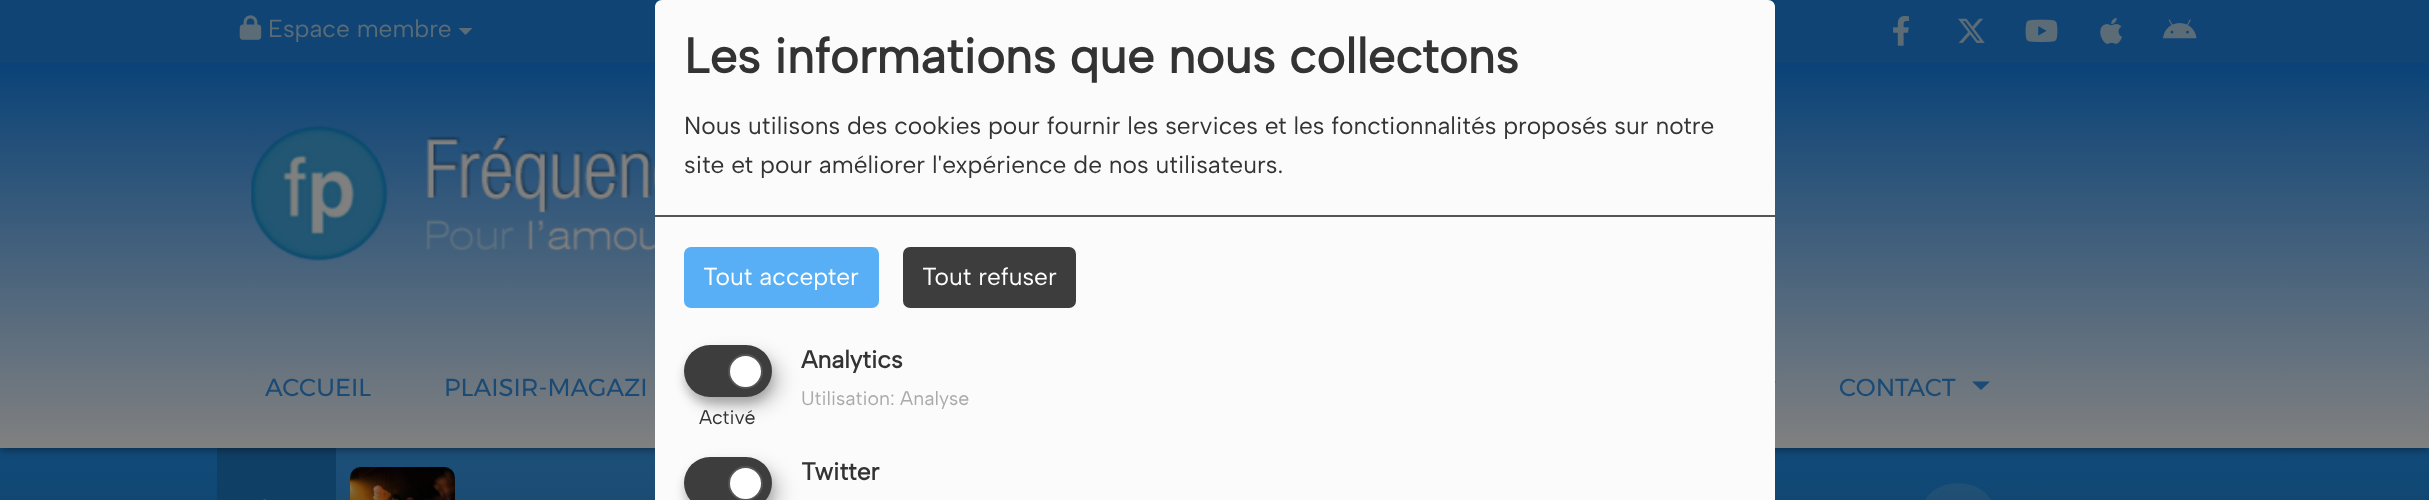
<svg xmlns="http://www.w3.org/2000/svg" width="2429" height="500">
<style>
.a{font:24.5px Albert Sans;fill:#5b6c77}
.b{font:24.5px Montserrat;fill:#1b4a74}
.c{font:bold 49px Albert Sans;fill:#333}
.d{font:24.5px Albert Sans;fill:#333}
.e{font:24.5px Albert Sans;fill:#fff}
.f{font:bold 24.5px Albert Sans;fill:#333}
.g{font:19.5px Albert Sans;fill:#333}
.h{font:19.5px Albert Sans;fill:#aaa}
</style>
<defs>
<linearGradient id="g1" gradientUnits="userSpaceOnUse" x1="1215" y1="448" x2="1215" y2="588"><stop offset="0" stop-color="#114b7a"/><stop offset="1" stop-color="#103f65"/></linearGradient>
<linearGradient id="g2" gradientUnits="userSpaceOnUse" x1="1215" y1="63" x2="1215" y2="448"><stop offset="0" stop-color="#0a4378"/><stop offset="1" stop-color="#808080"/></linearGradient>
<clipPath id="clip1"><path d="M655 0h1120v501H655z"/></clipPath>
</defs>
<rect width="100%" height="100%" fill="#fff"/>
<path fill="url(#g1)" d="M0 448h2429v52H0z"/>
<path fill="#103f65" d="M217 448h119v52H217z"/>
<path fill="#8080801a" d="M336 448h319v52H336z"/>
<path fill="#00000066" filter="blur(4.5px)" d="M0 65h2429v385H0z"/>
<path fill="#104474" d="M0 0h2429v63H0z"/>
<image href="1.png" x="239" y="15" width="23" height="25"/>
<path fill="#5b6c77" d="M458.5 28h14l-7 7z"/>
<image href="2.png" x="1893" y="16" width="16" height="30"/>
<image href="3.png" x="1958" y="18" width="27" height="25"/>
<image href="4.png" x="2025" y="19" width="33" height="23"/>
<image href="5.png" x="2100" y="17" width="22" height="27"/>
<image href="6.png" x="2163" y="19" width="34" height="20"/>
<path fill="url(#g2)" d="M0 63h2429v385H0z"/>
<image href="7.png" x="251" y="125" width="404" height="136"/>
<path fill="#1b4a74" d="M1759 381.5h17l-8.5 8.5z"/>
<path fill="#1b4a74" d="M1972 381.5h18l-9 8.5z"/>
<image href="8.png" x="263" y="499" width="3" height="1"/>
<image href="9.png" x="350" y="467" width="105" height="33"/>
<rect fill="#80808026" x="1923" y="483" width="70" height="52" rx="35"/>
<g clip-path="url(#clip1)">
<rect fill="#00000030" filter="blur(9px)" x="663" y="9" width="1120" height="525" rx="7"/>
<rect fill="#00000033" filter="blur(5px)" x="655" y="7" width="1120" height="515" rx="7"/>
</g>
<path fill="#fbfbfb" d="M662 0h1106c4 0 7 3 7 7v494h-1120v-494c0-4 3-7 7-7z"/>
<path fill="#555" d="M655 215h1120v2H655z"/>
<rect fill="#58aff5" x="684" y="247" width="195" height="61" rx="7"/>
<rect fill="#3e3d3d" x="903" y="247" width="173" height="61" rx="7"/>
<rect fill="#00000030" filter="blur(9px)" x="693" y="354" width="88" height="52" rx="26"/>
<rect fill="#00000033" filter="blur(5px)" x="684" y="352" width="88" height="52" rx="26"/>
<rect fill="#3e3d3d" x="684" y="345" width="88" height="52" rx="26"/>
<circle fill="#fff" stroke="#555" stroke-width="2" cx="745.5" cy="371.5" r="16.5"/>
<rect fill="#00000030" filter="blur(9px)" x="693" y="466" width="88" height="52" rx="26"/>
<rect fill="#00000033" filter="blur(5px)" x="684" y="464" width="88" height="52" rx="26"/>
<rect fill="#3e3d3d" x="684" y="457" width="88" height="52" rx="26"/>
<circle fill="#fff" stroke="#555" stroke-width="2" cx="745.5" cy="483.5" r="16.5"/>
<text class="a" x="268" y="37">Espace membre</text>
<text class="b" x="265" y="396">ACCUEIL</text>
<text class="b" x="444" y="396">PLAISIR-MAGAZI</text>
<text class="b" x="1839" y="396">CONTACT</text>
<text class="c" x="684" y="73">Les informations que nous collectons</text>
<text class="d" x="684" y="134">Nous utilisons des cookies pour fournir les services et les fonctionnalités proposés sur notre</text>
<text class="d" x="684" y="173">site et pour améliorer l'expérience de nos utilisateurs.</text>
<text class="e" x="703" y="285">Tout accepter</text>
<text class="e" x="922" y="285">Tout refuser</text>
<text class="f" x="801" y="368">Analytics</text>
<text class="g" x="699" y="424">Activé</text>
<text class="h" x="801" y="405">Utilisation: Analyse</text>
<text class="f" x="801" y="480">Twitter</text>
</svg>
